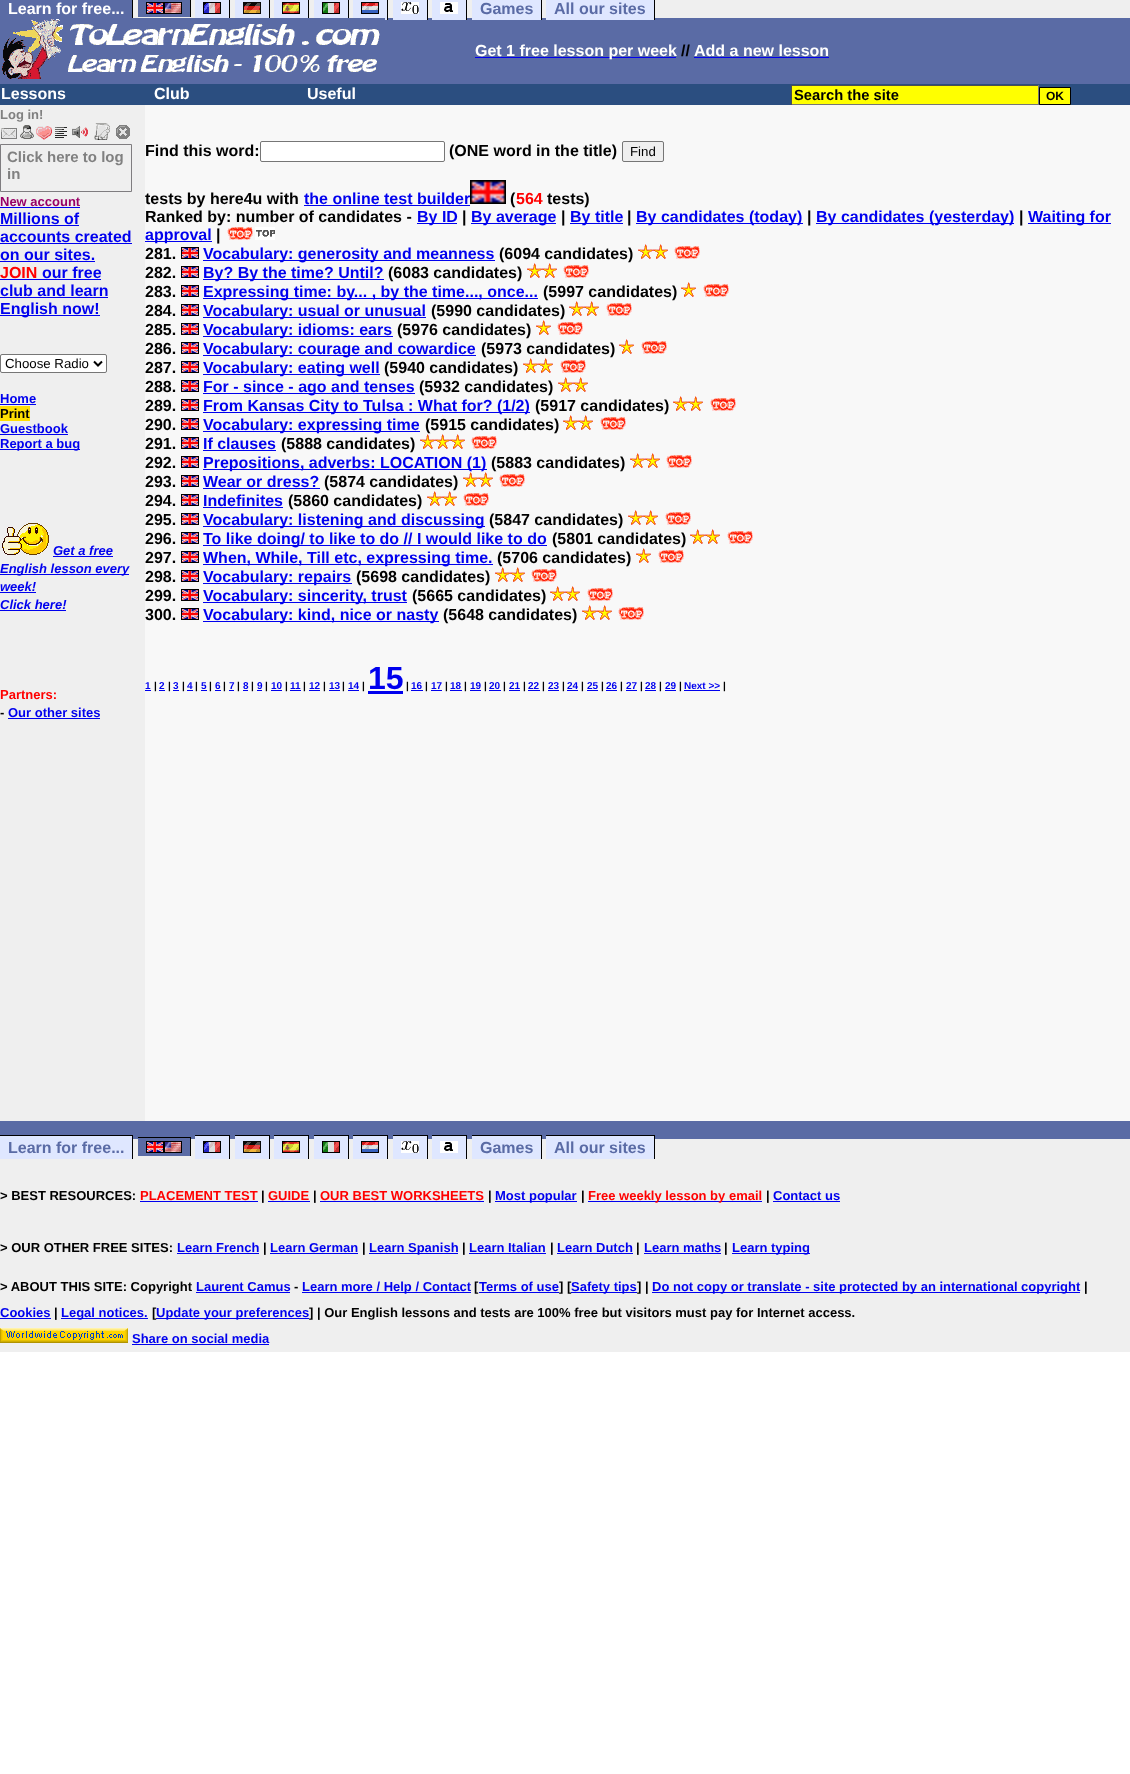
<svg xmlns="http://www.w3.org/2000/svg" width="1130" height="1774">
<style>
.a{font:bold 16px Liberation Sans;fill:#fff}
.b{font:bold 16px Liberation Sans;fill:#5a6ba5}
.c{font:bold 16px Liberation Sans;fill:#000}
.d{font:bold 14.75px Liberation Sans;fill:#000}
.e{font:bold 12px Liberation Sans;fill:#000}
.f{font:bold 13px Liberation Sans;fill:#808080}
.g{font:bold 15px Liberation Sans;fill:#808080}
.h{font:bold 13px Liberation Sans;fill:#906}
.i{font:bold 16px Liberation Sans;fill:#00e}
.j{font:bold 16px Liberation Sans;fill:#f00}
.k{font:13.25px Liberation Sans;fill:#000}
.l{font:bold 13px Liberation Sans;fill:#00e}
.m{font:bold 13px Liberation Sans;fill:#000}
.n{font:italic bold 13px Liberation Sans;fill:#00e}
.o{font:bold 13px Liberation Sans;fill:#f00}
.p{font:bold 10px Liberation Sans;fill:#00e}
.q{font:bold 10px Liberation Sans;fill:#000}
.r{font:bold 32px Liberation Sans;fill:#00e}
</style>
<rect width="100%" height="100%" fill="#fff"/>
<path fill="#efefef" d="M133 0h997v18H133z"/>
<path fill="#5a6ba5" d="M0 0h132v18H0z"/>
<path fill="#5a6ba5" d="M0 18h1130v66H0z"/>
<path fill="#000" d="M132 0h1v20H132z"/>
<path fill="#5a6ba5" d="M138 0h52v17H138z"/>
<path fill="#000" d="M190 0h1v17H190z"/>
<path fill="#dfe7ff" d="M195 0h34v18H195z"/>
<path fill="#000" d="M229 0h1v20H229z"/>
<path fill="#dfe7ff" d="M235 0h34v18H235z"/>
<path fill="#000" d="M269 0h1v20H269z"/>
<path fill="#dfe7ff" d="M274 0h34v18H274z"/>
<path fill="#000" d="M308 0h1v20H308z"/>
<path fill="#dfe7ff" d="M314 0h34v18H314z"/>
<path fill="#000" d="M348 0h1v20H348z"/>
<path fill="#dfe7ff" d="M353 0h34v20H353z"/>
<path fill="#000" d="M387 0h1v20H387z"/>
<path fill="#dfe7ff" d="M393 0h34v20H393z"/>
<path fill="#000" d="M427 0h1v20H427z"/>
<path fill="#dfe7ff" d="M432 0h34v20H432z"/>
<path fill="#000" d="M466 0h1v20H466z"/>
<image href="1.png" x="146" y="2" width="18" height="12"/>
<image href="2.png" x="164" y="2" width="18" height="12"/>
<image href="3.png" x="203" y="2" width="18" height="12"/>
<image href="4.png" x="243" y="2" width="18" height="12"/>
<image href="5.png" x="282" y="2" width="18" height="12"/>
<image href="6.png" x="322" y="2" width="18" height="12"/>
<image href="7.png" x="361" y="2" width="18" height="12"/>
<image href="8.png" x="401" y="2" width="18" height="12"/>
<image href="9.png" x="440" y="2" width="18" height="12"/>
<path fill="#dfe7ff" d="M472 0h69v20H472z"/>
<path fill="#000" d="M541 0h1v20H541z"/>
<path fill="#dfe7ff" d="M546 0h108v20H546z"/>
<path fill="#000" d="M654 0h1v20H654z"/>
<image href="10.png" x="2" y="18" width="383" height="61"/>
<path fill="#00e" d="M475 57h201v1H475z"/>
<path fill="#00e" d="M694 57h135v1H694z"/>
<path fill="#2b4e80" d="M0 84h1130v21H0z"/>
<path fill="#ff0" d="M792 86h246v18H792z"/>
<path fill="#4f4f4f" d="M791 85h248v1H791z"/>
<path fill="#767676" d="M1038 85h1v20H1038z"/>
<path fill="#767676" d="M791 104h248v1H791z"/>
<path fill="#4f4f4f" d="M791 85h1v20H791z"/>
<path fill="#ff0" stroke="#000" d="M1039.5 87.5h31v17H1039.5z"/>
<path fill="#efefef" d="M0 105h145v1016H0z"/>
<image href="11.png" x="1" y="123" width="129" height="17"/>
<path fill="none" stroke="#7f7d80" d="M0.5 144.5h131v47H0.5z"/>
<path fill="#00e" d="M0 207h80v1H0z"/>
<path fill="#00e" d="M0 225h79v1H0z"/>
<path fill="#00e" d="M0 243h132v1H0z"/>
<path fill="#00e" d="M0 261h95v1H0z"/>
<path fill="#00e" d="M0 279h101v1H0z"/>
<path fill="#00e" d="M0 297h108v1H0z"/>
<path fill="#00e" d="M0 315h100v1H0z"/>
<rect fill="#fff" stroke="#767676" x="0.5" y="354.5" width="106" height="18" rx="1.5"/>
<path fill="none" stroke="#000" stroke-width="2" d="M94 361.5l4 4l4-4"/>
<path fill="#00e" d="M0 404h36v1H0z"/>
<path fill="#ffde02" d="M0 406h30v15H0z"/>
<path fill="#00e" d="M0 434h68v1H0z"/>
<path fill="#00e" d="M0 449h80v1H0z"/>
<image href="12.png" x="2" y="523" width="47" height="32"/>
<path fill="#00e" d="M53 556h60v1H53z"/>
<path fill="#00e" d="M0 574h129v1H0z"/>
<path fill="#00e" d="M0 592h36v1H0z"/>
<path fill="#00e" d="M0 610h66v1H0z"/>
<path fill="#00e" d="M8 718h92v1H8z"/>
<path fill="#f8f8f8" d="M145 105h985v1016H145z"/>
<rect fill="#fff" stroke="#767676" x="260.5" y="141.5" width="184" height="20" rx="1.5"/>
<rect fill="#efefef" stroke="#767676" x="622.5" y="141.5" width="41" height="20" rx="1.5"/>
<path fill="#00e" d="M304 205h166v1H304z"/>
<image href="13.png" x="470" y="180" width="36" height="24"/>
<path fill="#00e" d="M417 223h40v1H417z"/>
<path fill="#00e" d="M471 223h85v1H471z"/>
<path fill="#00e" d="M570 223h53v1H570z"/>
<path fill="#00e" d="M636 223h167v1H636z"/>
<path fill="#00e" d="M816 223h198v1H816z"/>
<path fill="#00e" d="M1028 223h83v1H1028z"/>
<path fill="#00e" d="M145 241h67v1H145z"/>
<image href="14.png" x="227" y="227" width="26" height="13"/>
<image href="15.png" x="255" y="227" width="20" height="13"/>
<image href="1.png" x="181" y="247" width="18" height="12"/>
<path fill="#00e" d="M203 260h292v1H203z"/>
<image href="16.png" x="638" y="244" width="15" height="15"/>
<image href="16.png" x="653" y="244" width="15" height="15"/>
<image href="14.png" x="674" y="246" width="26" height="13"/>
<image href="1.png" x="181" y="266" width="18" height="12"/>
<path fill="#00e" d="M203 279h181v1H203z"/>
<image href="16.png" x="527" y="263" width="15" height="15"/>
<image href="16.png" x="542" y="263" width="15" height="15"/>
<image href="14.png" x="563" y="265" width="26" height="13"/>
<image href="1.png" x="181" y="285" width="18" height="12"/>
<path fill="#00e" d="M203 298h335v1H203z"/>
<image href="16.png" x="681" y="282" width="15" height="15"/>
<image href="14.png" x="703" y="284" width="26" height="13"/>
<image href="1.png" x="181" y="304" width="18" height="12"/>
<path fill="#00e" d="M203 317h223v1H203z"/>
<image href="16.png" x="569" y="301" width="15" height="15"/>
<image href="16.png" x="584" y="301" width="15" height="15"/>
<image href="14.png" x="606" y="303" width="26" height="13"/>
<image href="1.png" x="181" y="323" width="18" height="12"/>
<path fill="#00e" d="M203 336h190v1H203z"/>
<image href="16.png" x="536" y="320" width="15" height="15"/>
<image href="14.png" x="557" y="322" width="26" height="13"/>
<image href="1.png" x="181" y="342" width="18" height="12"/>
<path fill="#00e" d="M203 355h273v1H203z"/>
<image href="16.png" x="619" y="339" width="15" height="15"/>
<image href="14.png" x="641" y="341" width="26" height="13"/>
<image href="1.png" x="181" y="361" width="18" height="12"/>
<path fill="#00e" d="M203 374h177v1H203z"/>
<image href="16.png" x="523" y="358" width="15" height="15"/>
<image href="16.png" x="538" y="358" width="15" height="15"/>
<image href="14.png" x="560" y="360" width="26" height="13"/>
<image href="1.png" x="181" y="380" width="18" height="12"/>
<path fill="#00e" d="M203 393h212v1H203z"/>
<image href="16.png" x="558" y="377" width="15" height="15"/>
<image href="16.png" x="573" y="377" width="15" height="15"/>
<image href="1.png" x="181" y="399" width="18" height="12"/>
<path fill="#00e" d="M203 412h327v1H203z"/>
<image href="16.png" x="673" y="396" width="15" height="15"/>
<image href="16.png" x="688" y="396" width="15" height="15"/>
<image href="14.png" x="710" y="398" width="26" height="13"/>
<image href="1.png" x="181" y="418" width="18" height="12"/>
<path fill="#00e" d="M203 431h217v1H203z"/>
<image href="16.png" x="563" y="415" width="15" height="15"/>
<image href="16.png" x="578" y="415" width="15" height="15"/>
<image href="14.png" x="600" y="417" width="26" height="13"/>
<image href="1.png" x="181" y="437" width="18" height="12"/>
<path fill="#00e" d="M203 450h73v1H203z"/>
<image href="16.png" x="420" y="434" width="15" height="15"/>
<image href="16.png" x="435" y="434" width="15" height="15"/>
<image href="16.png" x="450" y="434" width="15" height="15"/>
<image href="14.png" x="471" y="436" width="26" height="13"/>
<image href="1.png" x="181" y="456" width="18" height="12"/>
<path fill="#00e" d="M203 469h284v1H203z"/>
<image href="16.png" x="630" y="453" width="15" height="15"/>
<image href="16.png" x="645" y="453" width="15" height="15"/>
<image href="14.png" x="666" y="455" width="26" height="13"/>
<image href="1.png" x="181" y="475" width="18" height="12"/>
<path fill="#00e" d="M203 488h117v1H203z"/>
<image href="16.png" x="463" y="472" width="15" height="15"/>
<image href="16.png" x="478" y="472" width="15" height="15"/>
<image href="14.png" x="499" y="474" width="26" height="13"/>
<image href="1.png" x="181" y="494" width="18" height="12"/>
<path fill="#00e" d="M203 507h80v1H203z"/>
<image href="16.png" x="427" y="491" width="15" height="15"/>
<image href="16.png" x="442" y="491" width="15" height="15"/>
<image href="14.png" x="463" y="493" width="26" height="13"/>
<image href="1.png" x="181" y="513" width="18" height="12"/>
<path fill="#00e" d="M203 526h282v1H203z"/>
<image href="16.png" x="628" y="510" width="15" height="15"/>
<image href="16.png" x="643" y="510" width="15" height="15"/>
<image href="14.png" x="665" y="512" width="26" height="13"/>
<image href="1.png" x="181" y="532" width="18" height="12"/>
<path fill="#00e" d="M203 545h344v1H203z"/>
<image href="16.png" x="690" y="529" width="15" height="15"/>
<image href="16.png" x="705" y="529" width="15" height="15"/>
<image href="14.png" x="727" y="531" width="26" height="13"/>
<image href="1.png" x="181" y="551" width="18" height="12"/>
<path fill="#00e" d="M203 564h290v1H203z"/>
<image href="16.png" x="636" y="548" width="15" height="15"/>
<image href="14.png" x="658" y="550" width="26" height="13"/>
<image href="1.png" x="181" y="570" width="18" height="12"/>
<path fill="#00e" d="M203 583h149v1H203z"/>
<image href="16.png" x="495" y="567" width="15" height="15"/>
<image href="16.png" x="510" y="567" width="15" height="15"/>
<image href="14.png" x="531" y="569" width="26" height="13"/>
<image href="1.png" x="181" y="589" width="18" height="12"/>
<path fill="#00e" d="M203 602h204v1H203z"/>
<image href="16.png" x="550" y="586" width="15" height="15"/>
<image href="16.png" x="565" y="586" width="15" height="15"/>
<image href="14.png" x="587" y="588" width="26" height="13"/>
<image href="1.png" x="181" y="608" width="18" height="12"/>
<path fill="#00e" d="M203 621h236v1H203z"/>
<image href="16.png" x="582" y="605" width="15" height="15"/>
<image href="16.png" x="597" y="605" width="15" height="15"/>
<image href="14.png" x="618" y="607" width="26" height="13"/>
<path fill="#00e" d="M145 690h6v1H145z"/>
<path fill="#00e" d="M159 690h6v1H159z"/>
<path fill="#00e" d="M173 690h6v1H173z"/>
<path fill="#00e" d="M187 690h6v1H187z"/>
<path fill="#00e" d="M201 690h6v1H201z"/>
<path fill="#00e" d="M215 690h6v1H215z"/>
<path fill="#00e" d="M229 690h5v1H229z"/>
<path fill="#00e" d="M243 690h5v1H243z"/>
<path fill="#00e" d="M257 690h5v1H257z"/>
<path fill="#00e" d="M271 690h11v1H271z"/>
<path fill="#00e" d="M290 690h11v1H290z"/>
<path fill="#00e" d="M309 690h11v1H309z"/>
<path fill="#00e" d="M329 690h11v1H329z"/>
<path fill="#00e" d="M348 690h11v1H348z"/>
<path fill="#00e" d="M368 691h35v3H368z"/>
<path fill="#00e" d="M411 690h12v1H411z"/>
<path fill="#00e" d="M431 690h11v1H431z"/>
<path fill="#00e" d="M450 690h12v1H450z"/>
<path fill="#00e" d="M470 690h11v1H470z"/>
<path fill="#00e" d="M489 690h12v1H489z"/>
<path fill="#00e" d="M509 690h11v1H509z"/>
<path fill="#00e" d="M528 690h12v1H528z"/>
<path fill="#00e" d="M548 690h11v1H548z"/>
<path fill="#00e" d="M567 690h11v1H567z"/>
<path fill="#00e" d="M587 690h11v1H587z"/>
<path fill="#00e" d="M606 690h11v1H606z"/>
<path fill="#00e" d="M626 690h11v1H626z"/>
<path fill="#00e" d="M645 690h11v1H645z"/>
<path fill="#00e" d="M665 690h11v1H665z"/>
<path fill="#00e" d="M684 690h36v1H684z"/>
<path fill="#5a6ba5" d="M0 1121h1130v18H0z"/>
<path fill="#efefef" d="M133 1139h997v18H133z"/>
<path fill="#000" d="M195 1135h35v1H195z"/>
<path fill="#efefef" d="M0 1157h1130v195H0z"/>
<path fill="#000" d="M229 1135h1v24H229z"/>
<path fill="#000" d="M235 1135h35v1H235z"/>
<path fill="#000" d="M269 1135h1v24H269z"/>
<path fill="#000" d="M274 1135h35v1H274z"/>
<path fill="#000" d="M308 1135h1v24H308z"/>
<path fill="#000" d="M314 1135h35v1H314z"/>
<path fill="#000" d="M348 1135h1v24H348z"/>
<path fill="#000" d="M353 1135h35v1H353z"/>
<path fill="#000" d="M387 1135h1v24H387z"/>
<path fill="#000" d="M393 1135h35v1H393z"/>
<path fill="#000" d="M427 1135h1v24H427z"/>
<path fill="#000" d="M432 1135h35v1H432z"/>
<path fill="#000" d="M138 1137h53v1H138z"/>
<path fill="#dfe7ff" d="M195 1136h34v23H195z"/>
<path fill="#dfe7ff" d="M235 1136h34v23H235z"/>
<path fill="#dfe7ff" d="M274 1136h34v23H274z"/>
<path fill="#dfe7ff" d="M314 1136h34v23H314z"/>
<path fill="#dfe7ff" d="M353 1136h34v23H353z"/>
<path fill="#dfe7ff" d="M393 1136h34v23H393z"/>
<path fill="#dfe7ff" d="M432 1136h34v23H432z"/>
<path fill="#000" d="M466 1135h1v24H466z"/>
<path fill="#dfe7ff" d="M0 1136h132v23H0z"/>
<path fill="#000" d="M0 1135h133v1H0z"/>
<path fill="#000" d="M132 1135h1v24H132z"/>
<path fill="#5a6ba5" d="M138 1139h52v17H138z"/>
<path fill="#000" d="M190 1137h1v19H190z"/>
<image href="1.png" x="146" y="1141" width="18" height="12"/>
<image href="2.png" x="164" y="1141" width="18" height="12"/>
<image href="3.png" x="203" y="1141" width="18" height="12"/>
<image href="4.png" x="243" y="1141" width="18" height="12"/>
<image href="5.png" x="282" y="1141" width="18" height="12"/>
<image href="6.png" x="322" y="1141" width="18" height="12"/>
<image href="7.png" x="361" y="1141" width="18" height="12"/>
<image href="8.png" x="401" y="1141" width="18" height="12"/>
<image href="9.png" x="440" y="1141" width="18" height="12"/>
<path fill="#dfe7ff" d="M472 1136h69v23H472z"/>
<path fill="#000" d="M472 1135h70v1H472z"/>
<path fill="#000" d="M541 1135h1v24H541z"/>
<path fill="#dfe7ff" d="M546 1136h108v23H546z"/>
<path fill="#000" d="M546 1135h109v1H546z"/>
<path fill="#000" d="M654 1135h1v24H654z"/>
<path fill="#00e" d="M140 1201h118v1H140z"/>
<path fill="#00e" d="M268 1201h42v1H268z"/>
<path fill="#00e" d="M320 1201h164v1H320z"/>
<path fill="#00e" d="M495 1201h82v1H495z"/>
<path fill="#00e" d="M588 1201h174v1H588z"/>
<path fill="#00e" d="M773 1201h67v1H773z"/>
<path fill="#00e" d="M177 1253h82v1H177z"/>
<path fill="#00e" d="M270 1253h88v1H270z"/>
<path fill="#00e" d="M369 1253h89v1H369z"/>
<path fill="#00e" d="M469 1253h77v1H469z"/>
<path fill="#00e" d="M557 1253h76v1H557z"/>
<path fill="#00e" d="M644 1253h77v1H644z"/>
<path fill="#00e" d="M732 1253h78v1H732z"/>
<path fill="#00e" d="M196 1292h94v1H196z"/>
<path fill="#00e" d="M302 1292h169v1H302z"/>
<path fill="#00e" d="M479 1292h80v1H479z"/>
<path fill="#00e" d="M571 1292h66v1H571z"/>
<path fill="#00e" d="M652 1292h428v1H652z"/>
<path fill="#00e" d="M0 1318h51v1H0z"/>
<path fill="#00e" d="M61 1318h87v1H61z"/>
<path fill="#00e" d="M156 1318h153v1H156z"/>
<image href="17.png" x="0" y="1328" width="128" height="15"/>
<path fill="#00e" d="M132 1344h137v1H132z"/>
<text class="a" x="8" y="14">Learn for free...</text>
<text class="b" x="480" y="14">Games</text>
<text class="b" x="554" y="14">All our sites</text>
<text class="a" x="475" y="56">Get 1 free lesson per week</text>
<text class="c" x="681" y="56">//</text>
<text class="a" x="694" y="56">Add a new lesson</text>
<text class="a" x="1" y="99">Lessons</text>
<text class="a" x="154" y="99">Club</text>
<text class="a" x="307" y="99">Useful</text>
<text class="d" x="794" y="100">Search the site</text>
<text class="e" x="1046" y="100">OK</text>
<text class="f" x="0" y="119">Log in!</text>
<text class="g" x="7" y="162">Click here to log</text>
<text class="g" x="7" y="179">in</text>
<text class="h" x="0" y="206">New account</text>
<text class="i" x="0" y="224">Millions of</text>
<text class="i" x="0" y="242">accounts created</text>
<text class="i" x="0" y="260">on our sites.</text>
<text class="j" x="0" y="278">JOIN</text>
<text class="i" x="42" y="278">our free</text>
<text class="i" x="0" y="296">club and learn</text>
<text class="i" x="0" y="314">English now!</text>
<text class="k" x="5" y="368">Choose Radio</text>
<text class="l" x="0" y="403">Home</text>
<text class="m" x="0" y="418">Print</text>
<text class="l" x="0" y="433">Guestbook</text>
<text class="l" x="0" y="448">Report a bug</text>
<text class="n" x="53" y="555">Get a free</text>
<text class="n" x="0" y="573">English lesson every</text>
<text class="n" x="0" y="591">week!</text>
<text class="n" x="0" y="609">Click here!</text>
<text class="o" x="0" y="699">Partners:</text>
<text class="m" x="0" y="717">-</text>
<text class="l" x="8" y="717">Our other sites</text>
<text class="c" x="145" y="156">Find this word:</text>
<text class="c" x="449" y="156">(ONE word in the title)</text>
<text class="k" x="630" y="156">Find</text>
<text class="c" x="145" y="204">tests by here4u with</text>
<text class="i" x="304" y="204">the online test builder</text>
<text class="c" x="510" y="204">(</text>
<text class="j" x="516" y="204">564</text>
<text class="c" x="547" y="204">tests)</text>
<text class="c" x="145" y="222">Ranked by: number of candidates -</text>
<text class="i" x="417" y="222">By ID</text>
<text class="c" x="462" y="222">|</text>
<text class="i" x="471" y="222">By average</text>
<text class="c" x="561" y="222">|</text>
<text class="i" x="570" y="222">By title</text>
<text class="c" x="627" y="222">|</text>
<text class="i" x="636" y="222">By candidates (today)</text>
<text class="c" x="807" y="222">|</text>
<text class="i" x="816" y="222">By candidates (yesterday)</text>
<text class="c" x="1019" y="222">|</text>
<text class="i" x="1028" y="222">Waiting for</text>
<text class="i" x="145" y="240">approval</text>
<text class="c" x="216" y="240">|</text>
<text class="c" x="145" y="259">281.</text>
<text class="i" x="203" y="259">Vocabulary: generosity and meanness</text>
<text class="c" x="499" y="259">(6094 candidates)</text>
<text class="c" x="145" y="278">282.</text>
<text class="i" x="203" y="278">By? By the time? Until?</text>
<text class="c" x="388" y="278">(6083 candidates)</text>
<text class="c" x="145" y="297">283.</text>
<text class="i" x="203" y="297">Expressing time: by... , by the time..., once...</text>
<text class="c" x="543" y="297">(5997 candidates)</text>
<text class="c" x="145" y="316">284.</text>
<text class="i" x="203" y="316">Vocabulary: usual or unusual</text>
<text class="c" x="431" y="316">(5990 candidates)</text>
<text class="c" x="145" y="335">285.</text>
<text class="i" x="203" y="335">Vocabulary: idioms: ears</text>
<text class="c" x="397" y="335">(5976 candidates)</text>
<text class="c" x="145" y="354">286.</text>
<text class="i" x="203" y="354">Vocabulary: courage and cowardice</text>
<text class="c" x="481" y="354">(5973 candidates)</text>
<text class="c" x="145" y="373">287.</text>
<text class="i" x="203" y="373">Vocabulary: eating well</text>
<text class="c" x="384" y="373">(5940 candidates)</text>
<text class="c" x="145" y="392">288.</text>
<text class="i" x="203" y="392">For - since - ago and tenses</text>
<text class="c" x="419" y="392">(5932 candidates)</text>
<text class="c" x="145" y="411">289.</text>
<text class="i" x="203" y="411">From Kansas City to Tulsa : What for? (1/2)</text>
<text class="c" x="535" y="411">(5917 candidates)</text>
<text class="c" x="145" y="430">290.</text>
<text class="i" x="203" y="430">Vocabulary: expressing time</text>
<text class="c" x="425" y="430">(5915 candidates)</text>
<text class="c" x="145" y="449">291.</text>
<text class="i" x="203" y="449">If clauses</text>
<text class="c" x="281" y="449">(5888 candidates)</text>
<text class="c" x="145" y="468">292.</text>
<text class="i" x="203" y="468">Prepositions, adverbs: LOCATION (1)</text>
<text class="c" x="491" y="468">(5883 candidates)</text>
<text class="c" x="145" y="487">293.</text>
<text class="i" x="203" y="487">Wear or dress?</text>
<text class="c" x="324" y="487">(5874 candidates)</text>
<text class="c" x="145" y="506">294.</text>
<text class="i" x="203" y="506">Indefinites</text>
<text class="c" x="288" y="506">(5860 candidates)</text>
<text class="c" x="145" y="525">295.</text>
<text class="i" x="203" y="525">Vocabulary: listening and discussing</text>
<text class="c" x="489" y="525">(5847 candidates)</text>
<text class="c" x="145" y="544">296.</text>
<text class="i" x="203" y="544">To like doing/ to like to do // I would like to do</text>
<text class="c" x="552" y="544">(5801 candidates)</text>
<text class="c" x="145" y="563">297.</text>
<text class="i" x="203" y="563">When, While, Till etc, expressing time.</text>
<text class="c" x="497" y="563">(5706 candidates)</text>
<text class="c" x="145" y="582">298.</text>
<text class="i" x="203" y="582">Vocabulary: repairs</text>
<text class="c" x="356" y="582">(5698 candidates)</text>
<text class="c" x="145" y="601">299.</text>
<text class="i" x="203" y="601">Vocabulary: sincerity, trust</text>
<text class="c" x="412" y="601">(5665 candidates)</text>
<text class="c" x="145" y="620">300.</text>
<text class="i" x="203" y="620">Vocabulary: kind, nice or nasty</text>
<text class="c" x="443" y="620">(5648 candidates)</text>
<text class="p" x="145" y="689">1</text>
<text class="q" x="154" y="689">|</text>
<text class="p" x="159" y="689">2</text>
<text class="q" x="168" y="689">|</text>
<text class="p" x="173" y="689">3</text>
<text class="q" x="182" y="689">|</text>
<text class="p" x="187" y="689">4</text>
<text class="q" x="195" y="689">|</text>
<text class="p" x="201" y="689">5</text>
<text class="q" x="209" y="689">|</text>
<text class="p" x="215" y="689">6</text>
<text class="q" x="223" y="689">|</text>
<text class="p" x="229" y="689">7</text>
<text class="q" x="237" y="689">|</text>
<text class="p" x="243" y="689">8</text>
<text class="q" x="251" y="689">|</text>
<text class="p" x="257" y="689">9</text>
<text class="q" x="265" y="689">|</text>
<text class="p" x="271" y="689">10</text>
<text class="q" x="285" y="689">|</text>
<text class="p" x="290" y="689">11</text>
<text class="q" x="303" y="689">|</text>
<text class="p" x="309" y="689">12</text>
<text class="q" x="323" y="689">|</text>
<text class="p" x="329" y="689">13</text>
<text class="q" x="342" y="689">|</text>
<text class="p" x="348" y="689">14</text>
<text class="q" x="362" y="689">|</text>
<text class="r" x="368" y="689">15</text>
<text class="q" x="406" y="689">|</text>
<text class="p" x="411" y="689">16</text>
<text class="q" x="425" y="689">|</text>
<text class="p" x="431" y="689">17</text>
<text class="q" x="445" y="689">|</text>
<text class="p" x="450" y="689">18</text>
<text class="q" x="464" y="689">|</text>
<text class="p" x="470" y="689">19</text>
<text class="q" x="484" y="689">|</text>
<text class="p" x="489" y="689">20</text>
<text class="q" x="503" y="689">|</text>
<text class="p" x="509" y="689">21</text>
<text class="q" x="523" y="689">|</text>
<text class="p" x="528" y="689">22</text>
<text class="q" x="542" y="689">|</text>
<text class="p" x="548" y="689">23</text>
<text class="q" x="562" y="689">|</text>
<text class="p" x="567" y="689">24</text>
<text class="q" x="581" y="689">|</text>
<text class="p" x="587" y="689">25</text>
<text class="q" x="601" y="689">|</text>
<text class="p" x="606" y="689">26</text>
<text class="q" x="620" y="689">|</text>
<text class="p" x="626" y="689">27</text>
<text class="q" x="640" y="689">|</text>
<text class="p" x="645" y="689">28</text>
<text class="q" x="659" y="689">|</text>
<text class="p" x="665" y="689">29</text>
<text class="q" x="679" y="689">|</text>
<text class="p" x="684" y="689">Next &gt;&gt;</text>
<text class="q" x="723" y="689">|</text>
<text class="b" x="8" y="1153">Learn for free...</text>
<text class="b" x="480" y="1153">Games</text>
<text class="b" x="554" y="1153">All our sites</text>
<text class="m" x="0" y="1200">&gt; BEST RESOURCES:</text>
<text class="o" x="140" y="1200">PLACEMENT TEST</text>
<text class="m" x="261" y="1200">|</text>
<text class="o" x="268" y="1200">GUIDE</text>
<text class="m" x="313" y="1200">|</text>
<text class="o" x="320" y="1200">OUR BEST WORKSHEETS</text>
<text class="m" x="488" y="1200">|</text>
<text class="l" x="495" y="1200">Most popular</text>
<text class="m" x="581" y="1200">|</text>
<text class="o" x="588" y="1200">Free weekly lesson by email</text>
<text class="m" x="766" y="1200">|</text>
<text class="l" x="773" y="1200">Contact us</text>
<text class="m" x="0" y="1252">&gt; OUR OTHER FREE SITES:</text>
<text class="l" x="177" y="1252">Learn French</text>
<text class="m" x="263" y="1252">|</text>
<text class="l" x="270" y="1252">Learn German</text>
<text class="m" x="362" y="1252">|</text>
<text class="l" x="369" y="1252">Learn Spanish</text>
<text class="m" x="462" y="1252">|</text>
<text class="l" x="469" y="1252">Learn Italian</text>
<text class="m" x="550" y="1252">|</text>
<text class="l" x="557" y="1252">Learn Dutch</text>
<text class="m" x="636" y="1252">|</text>
<text class="l" x="644" y="1252">Learn maths</text>
<text class="m" x="724" y="1252">|</text>
<text class="l" x="732" y="1252">Learn typing</text>
<text class="m" x="0" y="1291">&gt; ABOUT THIS SITE: Copyright</text>
<text class="l" x="196" y="1291">Laurent Camus</text>
<text class="m" x="294" y="1291">-</text>
<text class="l" x="302" y="1291">Learn more / Help / Contact</text>
<text class="m" x="474" y="1291">[</text>
<text class="l" x="479" y="1291">Terms of use</text>
<text class="m" x="559" y="1291">] [</text>
<text class="l" x="571" y="1291">Safety tips</text>
<text class="m" x="637" y="1291">] |</text>
<text class="l" x="652" y="1291">Do not copy or translate - site protected by an international copyright</text>
<text class="m" x="1084" y="1291">|</text>
<text class="l" x="0" y="1317">Cookies</text>
<text class="m" x="54" y="1317">|</text>
<text class="l" x="61" y="1317">Legal notices.</text>
<text class="m" x="152" y="1317">[</text>
<text class="l" x="156" y="1317">Update your preferences</text>
<text class="m" x="309" y="1317">] | Our English lessons and tests are 100% free but visitors must pay for Internet access.</text>
<text class="l" x="132" y="1343">Share on social media</text>
</svg>
